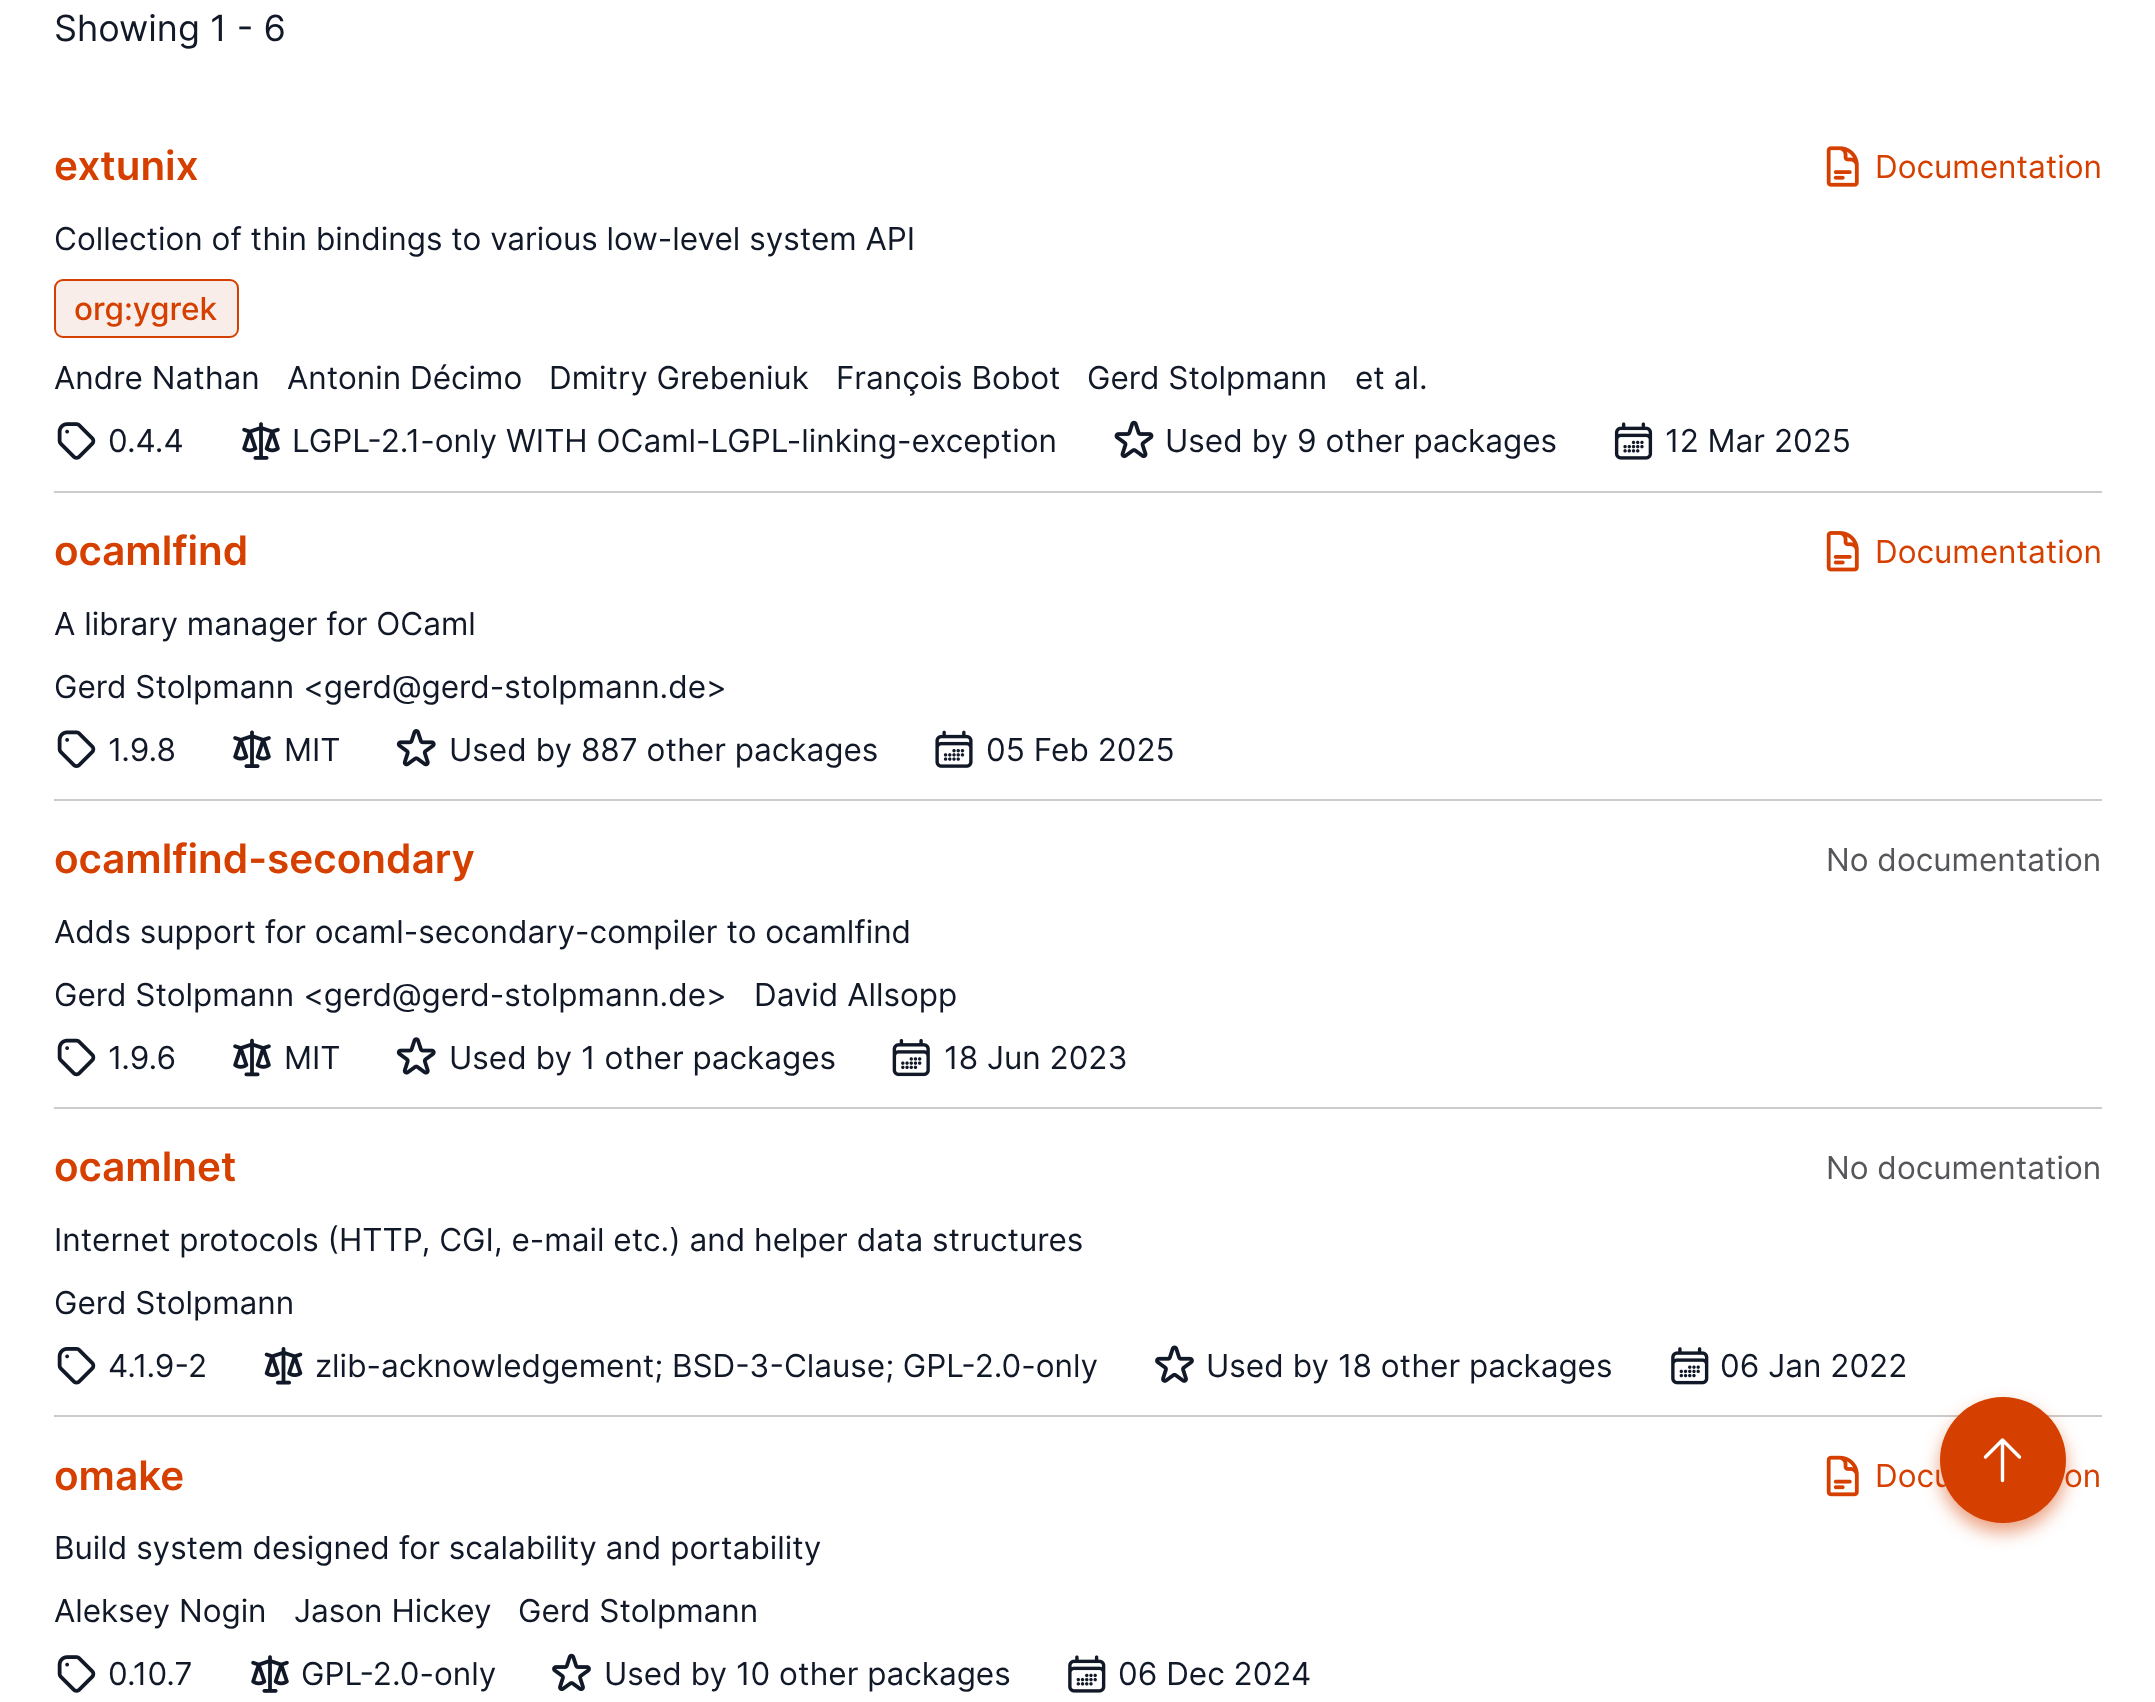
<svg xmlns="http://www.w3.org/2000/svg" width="2155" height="1702">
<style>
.a{font:36px Inter;fill:#111827}
.b{font:600 40.5px Inter;fill:#d54000}
.c{font:31.5px Inter;fill:#d54000}
.d{font:31.5px Inter;fill:#111827}
.e{font:500 31.5px Inter;fill:#d54000}
.f{font:31.5px Inter;fill:#555659}
</style>
<rect width="100%" height="100%" fill="#fff"/>
<path fill="#ccc" d="M54 491h2048v2H54z"/>
<image href="1.png" x="1826" y="146" width="33" height="41"/>
<rect fill="#f9ede9" stroke="#d54000" stroke-width="2" x="55" y="280" width="183" height="57" rx="8"/>
<image href="2.png" x="57" y="422" width="39" height="38"/>
<image href="3.png" x="242" y="422" width="38" height="38"/>
<image href="4.png" x="1114" y="420" width="40" height="39"/>
<image href="5.png" x="1614" y="422" width="39" height="38"/>
<path fill="#ccc" d="M54 799h2048v2H54z"/>
<image href="6.png" x="1826" y="531" width="33" height="41"/>
<image href="7.png" x="57" y="730" width="39" height="38"/>
<image href="8.png" x="233" y="730" width="38" height="38"/>
<image href="9.png" x="396" y="729" width="40" height="38"/>
<image href="10.png" x="935" y="730" width="38" height="38"/>
<path fill="#ccc" d="M54 1107h2048v2H54z"/>
<image href="11.png" x="57" y="1038" width="39" height="39"/>
<image href="12.png" x="233" y="1038" width="38" height="39"/>
<image href="13.png" x="396" y="1037" width="40" height="38"/>
<image href="14.png" x="892" y="1038" width="38" height="39"/>
<path fill="#ccc" d="M54 1415h2048v2H54z"/>
<image href="15.png" x="57" y="1347" width="39" height="38"/>
<image href="16.png" x="264" y="1347" width="39" height="38"/>
<image href="17.png" x="1155" y="1345" width="39" height="38"/>
<image href="18.png" x="1671" y="1347" width="38" height="38"/>
<image href="19.png" x="1826" y="1455" width="33" height="42"/>
<image href="2.png" x="57" y="1655" width="39" height="38"/>
<image href="3.png" x="251" y="1655" width="38" height="38"/>
<image href="20.png" x="552" y="1653" width="39" height="39"/>
<image href="21.png" x="1068" y="1655" width="38" height="38"/>
<rect fill="#d5400080" filter="blur(9px)" x="1940" y="1406" width="126" height="126" rx="63"/>
<circle fill="#d54000" cx="2003" cy="1460" r="63"/>
<path fill="none" stroke="#fff" stroke-width="3.4" stroke-linecap="round" stroke-linejoin="round" d="M1985.5 1457l17-17m0 0l17 17m-17-17v40.5"/>
<text class="a" x="54" y="41">Showing 1 - 6</text>
<text class="b" x="54" y="180">extunix</text>
<text class="c" x="1875" y="178">Documentation</text>
<text class="d" x="54" y="250">Collection of thin bindings to various low-level system API</text>
<text class="e" x="74" y="320">org:ygrek</text>
<text class="d" x="54" y="389">Andre Nathan</text>
<text class="d" x="287" y="389">Antonin Décimo</text>
<text class="d" x="549" y="389">Dmitry Grebeniuk</text>
<text class="d" x="836" y="389">François Bobot</text>
<text class="d" x="1087" y="389">Gerd Stolpmann</text>
<text class="d" x="1355" y="389">et al.</text>
<text class="d" x="108" y="452">0.4.4</text>
<text class="d" x="292" y="452">LGPL-2.1-only WITH OCaml-LGPL-linking-exception</text>
<text class="d" x="1165" y="452">Used by 9 other packages</text>
<text class="d" x="1665" y="452">12 Mar 2025</text>
<text class="b" x="54" y="565">ocamlfind</text>
<text class="c" x="1875" y="563">Documentation</text>
<text class="d" x="54" y="635">A library manager for OCaml</text>
<text class="d" x="54" y="698">Gerd Stolpmann &lt;gerd@gerd-stolpmann.de&gt;</text>
<text class="d" x="108" y="761">1.9.8</text>
<text class="d" x="284" y="761">MIT</text>
<text class="d" x="449" y="761">Used by 887 other packages</text>
<text class="d" x="986" y="761">05 Feb 2025</text>
<text class="b" x="54" y="873">ocamlfind-secondary</text>
<text class="f" x="1826" y="871">No documentation</text>
<text class="d" x="54" y="943">Adds support for ocaml-secondary-compiler to ocamlfind</text>
<text class="d" x="54" y="1006">Gerd Stolpmann &lt;gerd@gerd-stolpmann.de&gt;</text>
<text class="d" x="754" y="1006">David Allsopp</text>
<text class="d" x="108" y="1069">1.9.6</text>
<text class="d" x="284" y="1069">MIT</text>
<text class="d" x="449" y="1069">Used by 1 other packages</text>
<text class="d" x="944" y="1069">18 Jun 2023</text>
<text class="b" x="54" y="1181">ocamlnet</text>
<text class="f" x="1826" y="1179">No documentation</text>
<text class="d" x="54" y="1251">Internet protocols (HTTP, CGI, e-mail etc.) and helper data structures</text>
<text class="d" x="54" y="1314">Gerd Stolpmann</text>
<text class="d" x="108" y="1377">4.1.9-2</text>
<text class="d" x="315" y="1377">zlib-acknowledgement; BSD-3-Clause; GPL-2.0-only</text>
<text class="d" x="1206" y="1377">Used by 18 other packages</text>
<text class="d" x="1720" y="1377">06 Jan 2022</text>
<text class="b" x="54" y="1490">omake</text>
<text class="c" x="1875" y="1487">Docu</text>
<text class="c" x="2064" y="1487">on</text>
<text class="d" x="54" y="1559">Build system designed for scalability and portability</text>
<text class="d" x="54" y="1622">Aleksey Nogin</text>
<text class="d" x="294" y="1622">Jason Hickey</text>
<text class="d" x="518" y="1622">Gerd Stolpmann</text>
<text class="d" x="108" y="1685">0.10.7</text>
<text class="d" x="301" y="1685">GPL-2.0-only</text>
<text class="d" x="604" y="1685">Used by 10 other packages</text>
<text class="d" x="1118" y="1685">06 Dec 2024</text>
</svg>
